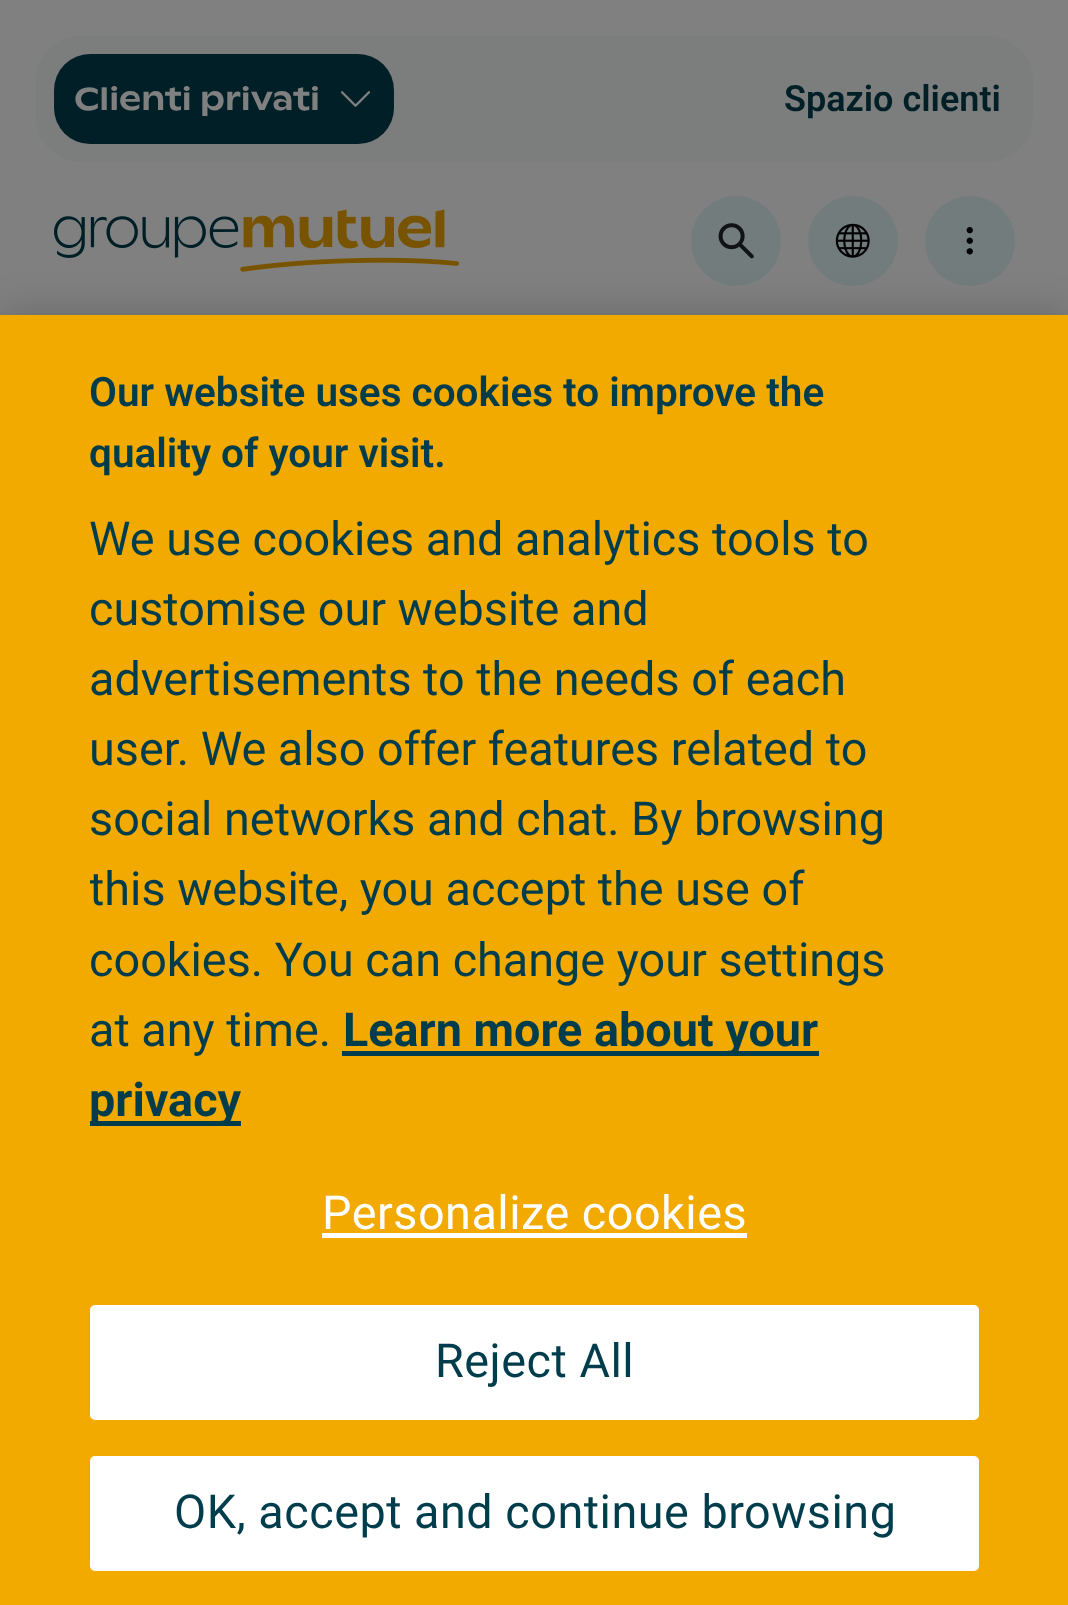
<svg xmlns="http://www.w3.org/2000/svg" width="1068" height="1605">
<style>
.a{font:500 31.5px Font;fill:#808080}
.b{font:600 36px Roboto;fill:#001f26}
.c{font:600 40.5px Roboto;fill:#003d4c}
.d{font:46.75px Roboto;fill:#003d4c}
.e{font:bold 46.75px Roboto;fill:#003d4c}
.f{font:46.75px Roboto;letter-spacing:0.5px;fill:#fff}
.g{font:46.75px Roboto;letter-spacing:0.5px;fill:#003d4c}
</style>
<defs>
<clipPath id="clip1"><path d="M90 360h842v776H90z"/></clipPath>
</defs>
<rect width="100%" height="100%" fill="#808080"/>
<rect fill="#7c7d7d" x="36" y="36" width="997" height="126" rx="45"/>
<rect fill="#001f26" x="54" y="54" width="340" height="90" rx="36"/>
<image href="1.png" x="340" y="91" width="31" height="16"/>
<image href="2.png" x="54" y="209" width="405" height="63"/>
<circle fill="#737c7d" cx="736" cy="241" r="45"/>
<image href="3.png" x="718" y="223" width="36" height="36"/>
<circle fill="#737c7d" cx="853" cy="241" r="45"/>
<image href="4.png" x="835" y="223" width="35" height="35"/>
<circle fill="#737c7d" cx="970" cy="241" r="45"/>
<image href="5.png" x="966" y="227" width="7" height="28"/>
<path fill="#00000033" filter="blur(20px)" d="M0 315h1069v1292H0z"/>
<path fill="#f2a900" d="M0 315h1068v1290H0z"/>
<path fill="#003d4c" d="M342 1051h477v5H342z"/>
<path fill="#003d4c" d="M90 1121h151v5H90z"/>
<path fill="#fff" d="M322 1233h425v5H322z"/>
<rect fill="#fff" stroke="#fff" stroke-width="2" x="91" y="1306" width="887" height="113" rx="4"/>
<rect fill="#fff" stroke="#fff" stroke-width="2" x="91" y="1457" width="887" height="113" rx="4"/>
<text class="a" x="74" y="110">Clienti privati</text>
<text class="b" x="784" y="111">Spazio clienti</text>
<text class="c" x="89" y="406">Our website uses cookies to improve the</text>
<text class="c" x="89" y="467">quality of your visit.</text>
<text class="d" x="89" y="555">We use cookies and analytics tools to</text>
<text class="d" x="89" y="625">customise our website and</text>
<text class="d" x="89" y="695">advertisements to the needs of each</text>
<text class="d" x="89" y="765">user. We also offer features related to</text>
<text class="d" x="89" y="835">social networks and chat. By browsing</text>
<g clip-path="url(#clip1)">
<text class="d" x="89" y="905">this website, you accept the use of</text>
</g>
<text class="d" x="89" y="976">cookies. You can change your settings</text>
<text class="d" x="89" y="1046">at any time.</text>
<text class="e" x="343" y="1046">Learn more about your</text>
<text class="e" x="89" y="1116">privacy</text>
<text class="f" x="322" y="1229">Personalize cookies</text>
<text class="g" x="435" y="1377">Reject All</text>
<text class="g" x="174" y="1528">OK, accept and continue browsing</text>
</svg>
